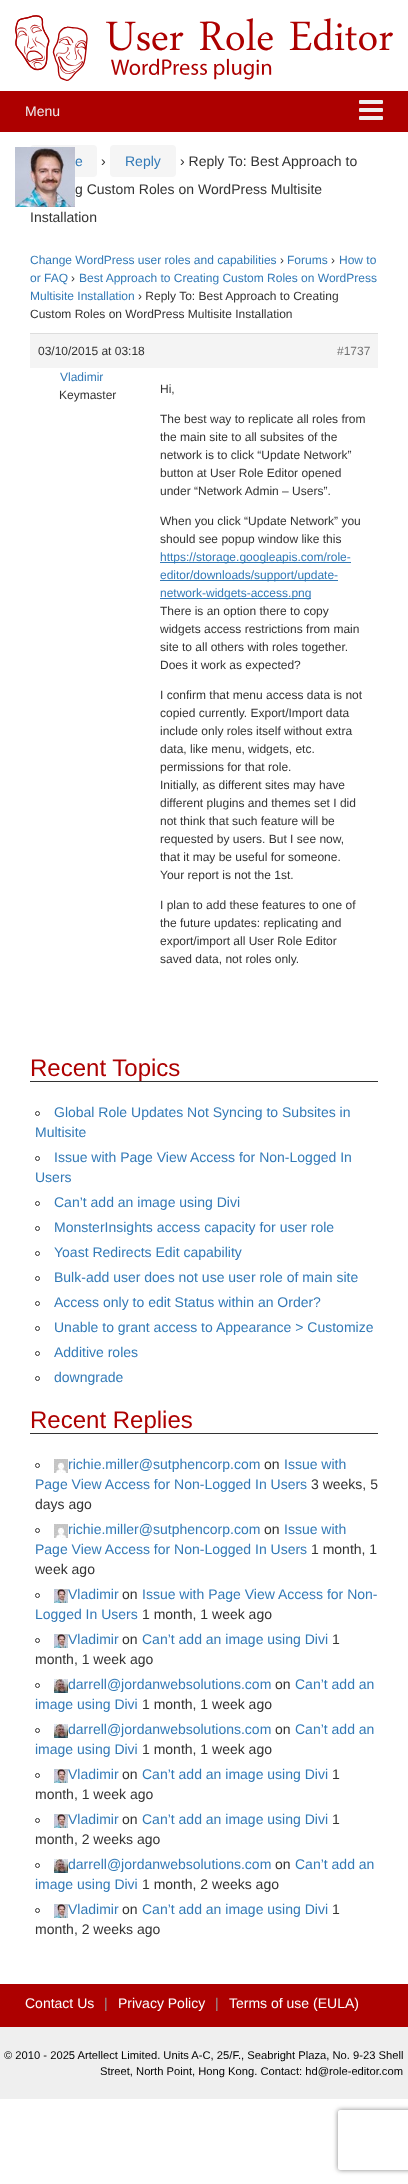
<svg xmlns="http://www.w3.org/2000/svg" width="408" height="2184">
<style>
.a{font:14px Liberation Sans;fill:#eee}
.b{font:14px Liberation Sans;fill:#337ab7}
.c{font:14px Liberation Sans;fill:#333}
.d{font:12px Liberation Sans;fill:#337ab7}
.e{font:12px Liberation Sans;fill:#333}
.f{font:12px Liberation Sans;fill:#707070}
.g{font:24px Liberation Sans;fill:#ad0000}
.h{font:14px Liberation Sans;fill:#fff}
.i{font:14px Liberation Sans;fill:#999}
.j{font:11.2px Liberation Sans;fill:#000}
</style>
<defs>
<clipPath id="clip1"><path d="M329 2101h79v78h-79zm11 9h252c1 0 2 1 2 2v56c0 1-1 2-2 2h-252c-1 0-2-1-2-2v-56c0-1 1-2 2-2z" clip-rule="evenodd"/></clipPath>
</defs>
<rect width="100%" height="100%" fill="#fff"/>
<image href="1.png" x="15" y="15" width="378" height="66"/>
<path fill="#ad0000" d="M0 91h408v41H0z"/>
<image href="2.png" x="359" y="100" width="24" height="20"/>
<rect fill="#f5f5f5" x="30" y="145" width="67" height="32" rx="4"/>
<rect fill="#f5f5f5" x="110" y="145" width="66" height="32" rx="4"/>
<path fill="#f4f4f4" d="M30 334h348v34H30z"/>
<path fill="#ddd" d="M30 333h348v1H30z"/>
<image href="3.png" x="15" y="147" width="60" height="60"/>
<path fill="#337ab7" d="M160 562h191v1H160z"/>
<path fill="#337ab7" d="M160 580h178v1H160z"/>
<path fill="#337ab7" d="M160 598h151v1H160z"/>
<path fill="#333" d="M30 1081h348v1H30z"/>
<circle fill="none" stroke="#333" cx="37.5" cy="1113.5" r="2"/>
<circle fill="none" stroke="#333" cx="37.5" cy="1158.5" r="2"/>
<circle fill="none" stroke="#333" cx="37.5" cy="1203.5" r="2"/>
<circle fill="none" stroke="#333" cx="37.5" cy="1228.5" r="2"/>
<circle fill="none" stroke="#333" cx="37.5" cy="1253.5" r="2"/>
<circle fill="none" stroke="#333" cx="37.5" cy="1278.5" r="2"/>
<circle fill="none" stroke="#333" cx="37.5" cy="1303.5" r="2"/>
<circle fill="none" stroke="#333" cx="37.5" cy="1328.5" r="2"/>
<circle fill="none" stroke="#333" cx="37.5" cy="1353.5" r="2"/>
<circle fill="none" stroke="#333" cx="37.5" cy="1378.5" r="2"/>
<path fill="#333" d="M30 1433h348v1H30z"/>
<circle fill="none" stroke="#333" cx="37.5" cy="1465.5" r="2"/>
<image href="4.png" x="54" y="1459" width="14" height="14"/>
<circle fill="none" stroke="#333" cx="37.5" cy="1530.5" r="2"/>
<image href="4.png" x="54" y="1524" width="14" height="14"/>
<circle fill="none" stroke="#333" cx="37.5" cy="1595.5" r="2"/>
<image href="5.png" x="54" y="1589" width="14" height="14"/>
<circle fill="none" stroke="#333" cx="37.5" cy="1640.5" r="2"/>
<image href="5.png" x="54" y="1634" width="14" height="14"/>
<circle fill="none" stroke="#333" cx="37.5" cy="1685.5" r="2"/>
<image href="6.png" x="54" y="1679" width="14" height="14"/>
<circle fill="none" stroke="#333" cx="37.5" cy="1730.5" r="2"/>
<image href="6.png" x="54" y="1724" width="14" height="14"/>
<circle fill="none" stroke="#333" cx="37.5" cy="1775.5" r="2"/>
<image href="5.png" x="54" y="1769" width="14" height="14"/>
<circle fill="none" stroke="#333" cx="37.5" cy="1820.5" r="2"/>
<image href="5.png" x="54" y="1814" width="14" height="14"/>
<circle fill="none" stroke="#333" cx="37.5" cy="1865.5" r="2"/>
<image href="6.png" x="54" y="1859" width="14" height="14"/>
<circle fill="none" stroke="#333" cx="37.5" cy="1910.5" r="2"/>
<image href="5.png" x="54" y="1904" width="14" height="14"/>
<path fill="#efefef" d="M0 2027h408v72H0z"/>
<path fill="#ad0000" d="M0 1984h408v43H0z"/>
<g clip-path="url(#clip1)">
<rect fill="#808080" filter="blur(2.5px)" x="338" y="2110" width="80" height="60" rx="2"/>
</g>
<text class="a" x="25" y="116">Menu</text>
<text class="b" x="75" y="166">e</text>
<text class="c" x="101" y="166">›</text>
<text class="b" x="125" y="166">Reply</text>
<text class="c" x="180" y="166">› Reply To: Best Approach to</text>
<text class="c" x="75" y="194">g Custom Roles on WordPress Multisite</text>
<text class="c" x="30" y="222">Installation</text>
<text class="d" x="30" y="264">Change WordPress user roles and capabilities</text>
<text class="e" x="280" y="264">›</text>
<text class="d" x="287" y="264">Forums</text>
<text class="e" x="331" y="264">›</text>
<text class="d" x="339" y="264">How to</text>
<text class="d" x="30" y="282">or FAQ</text>
<text class="e" x="71" y="282">›</text>
<text class="d" x="79" y="282">Best Approach to Creating Custom Roles on WordPress</text>
<text class="d" x="30" y="300">Multisite Installation</text>
<text class="e" x="138" y="300">› Reply To: Best Approach to Creating</text>
<text class="e" x="30" y="318">Custom Roles on WordPress Multisite Installation</text>
<text class="e" x="38" y="355">03/10/2015 at 03:18</text>
<text class="f" x="337" y="355">#1737</text>
<text class="d" x="60" y="381">Vladimir</text>
<text class="e" x="59" y="399">Keymaster</text>
<text class="e" x="160" y="393">Hi,</text>
<text class="e" x="160" y="423">The best way to replicate all roles from</text>
<text class="e" x="160" y="441">the main site to all subsites of the</text>
<text class="e" x="160" y="459">network is to click “Update Network”</text>
<text class="e" x="160" y="477">button at User Role Editor opened</text>
<text class="e" x="160" y="495">under “Network Admin – Users”.</text>
<text class="e" x="160" y="525">When you click “Update Network” you</text>
<text class="e" x="160" y="543">should see popup window like this</text>
<text class="d" x="160" y="561">https://storage.googleapis.com/role-</text>
<text class="d" x="160" y="579">editor/downloads/support/update-</text>
<text class="d" x="160" y="597">network-widgets-access.png</text>
<text class="e" x="160" y="615">There is an option there to copy</text>
<text class="e" x="160" y="633">widgets access restrictions from main</text>
<text class="e" x="160" y="651">site to all others with roles together.</text>
<text class="e" x="160" y="669">Does it work as expected?</text>
<text class="e" x="160" y="699">I confirm that menu access data is not</text>
<text class="e" x="160" y="717">copied currently. Export/Import data</text>
<text class="e" x="160" y="735">include only roles itself without extra</text>
<text class="e" x="160" y="753">data, like menu, widgets, etc.</text>
<text class="e" x="160" y="771">permissions for that role.</text>
<text class="e" x="160" y="789">Initially, as different sites may have</text>
<text class="e" x="160" y="807">different plugins and themes set I did</text>
<text class="e" x="160" y="825">not think that such feature will be</text>
<text class="e" x="160" y="843">requested by users. But I see now,</text>
<text class="e" x="160" y="861">that it may be useful for someone.</text>
<text class="e" x="160" y="879">Your report is not the 1st.</text>
<text class="e" x="160" y="909">I plan to add these features to one of</text>
<text class="e" x="160" y="927">the future updates: replicating and</text>
<text class="e" x="160" y="945">export/import all User Role Editor</text>
<text class="e" x="160" y="963">saved data, not roles only.</text>
<text class="g" x="30" y="1076">Recent Topics</text>
<text class="b" x="54" y="1117">Global Role Updates Not Syncing to Subsites in</text>
<text class="b" x="35" y="1137">Multisite</text>
<text class="b" x="54" y="1162">Issue with Page View Access for Non-Logged In</text>
<text class="b" x="35" y="1182">Users</text>
<text class="b" x="54" y="1207">Can’t add an image using Divi</text>
<text class="b" x="54" y="1232">MonsterInsights access capacity for user role</text>
<text class="b" x="54" y="1257">Yoast Redirects Edit capability</text>
<text class="b" x="54" y="1282">Bulk-add user does not use user role of main site</text>
<text class="b" x="54" y="1307">Access only to edit Status within an Order?</text>
<text class="b" x="54" y="1332">Unable to grant access to Appearance &gt; Customize</text>
<text class="b" x="54" y="1357">Additive roles</text>
<text class="b" x="54" y="1382">downgrade</text>
<text class="g" x="30" y="1428">Recent Replies</text>
<text class="b" x="68" y="1469">richie.miller@sutphencorp.com</text>
<text class="c" x="264" y="1469">on</text>
<text class="b" x="284" y="1469">Issue with</text>
<text class="b" x="35" y="1489">Page View Access for Non-Logged In Users</text>
<text class="c" x="311" y="1489">3 weeks, 5</text>
<text class="c" x="35" y="1509">days ago</text>
<text class="b" x="68" y="1534">richie.miller@sutphencorp.com</text>
<text class="c" x="264" y="1534">on</text>
<text class="b" x="284" y="1534">Issue with</text>
<text class="b" x="35" y="1554">Page View Access for Non-Logged In Users</text>
<text class="c" x="311" y="1554">1 month, 1</text>
<text class="c" x="35" y="1574">week ago</text>
<text class="b" x="68" y="1599">Vladimir</text>
<text class="c" x="122" y="1599">on</text>
<text class="b" x="142" y="1599">Issue with Page View Access for Non-</text>
<text class="b" x="35" y="1619">Logged In Users</text>
<text class="c" x="142" y="1619">1 month, 1 week ago</text>
<text class="b" x="68" y="1644">Vladimir</text>
<text class="c" x="122" y="1644">on</text>
<text class="b" x="142" y="1644">Can’t add an image using Divi</text>
<text class="c" x="332" y="1644">1</text>
<text class="c" x="35" y="1664">month, 1 week ago</text>
<text class="b" x="68" y="1689">darrell@jordanwebsolutions.com</text>
<text class="c" x="275" y="1689">on</text>
<text class="b" x="295" y="1689">Can’t add an</text>
<text class="b" x="35" y="1709">image using Divi</text>
<text class="c" x="142" y="1709">1 month, 1 week ago</text>
<text class="b" x="68" y="1734">darrell@jordanwebsolutions.com</text>
<text class="c" x="275" y="1734">on</text>
<text class="b" x="295" y="1734">Can’t add an</text>
<text class="b" x="35" y="1754">image using Divi</text>
<text class="c" x="142" y="1754">1 month, 1 week ago</text>
<text class="b" x="68" y="1779">Vladimir</text>
<text class="c" x="122" y="1779">on</text>
<text class="b" x="142" y="1779">Can’t add an image using Divi</text>
<text class="c" x="332" y="1779">1</text>
<text class="c" x="35" y="1799">month, 1 week ago</text>
<text class="b" x="68" y="1824">Vladimir</text>
<text class="c" x="122" y="1824">on</text>
<text class="b" x="142" y="1824">Can’t add an image using Divi</text>
<text class="c" x="332" y="1824">1</text>
<text class="c" x="35" y="1844">month, 2 weeks ago</text>
<text class="b" x="68" y="1869">darrell@jordanwebsolutions.com</text>
<text class="c" x="275" y="1869">on</text>
<text class="b" x="295" y="1869">Can’t add an</text>
<text class="b" x="35" y="1889">image using Divi</text>
<text class="c" x="142" y="1889">1 month, 2 weeks ago</text>
<text class="b" x="68" y="1914">Vladimir</text>
<text class="c" x="122" y="1914">on</text>
<text class="b" x="142" y="1914">Can’t add an image using Divi</text>
<text class="c" x="332" y="1914">1</text>
<text class="c" x="35" y="1934">month, 2 weeks ago</text>
<text class="h" x="25" y="2008">Contact Us</text>
<text class="i" x="104" y="2008">|</text>
<text class="h" x="118" y="2008">Privacy Policy</text>
<text class="i" x="215" y="2008">|</text>
<text class="h" x="229" y="2008">Terms of use (EULA)</text>
<text class="j" x="4" y="2059">© 2010 - 2025 Artellect Limited. Units A-C, 25/F., Seabright Plaza, No. 9-23 Shell</text>
<text class="j" x="100" y="2075">Street, North Point, Hong Kong. Contact: hd@role-editor.com</text>
</svg>
